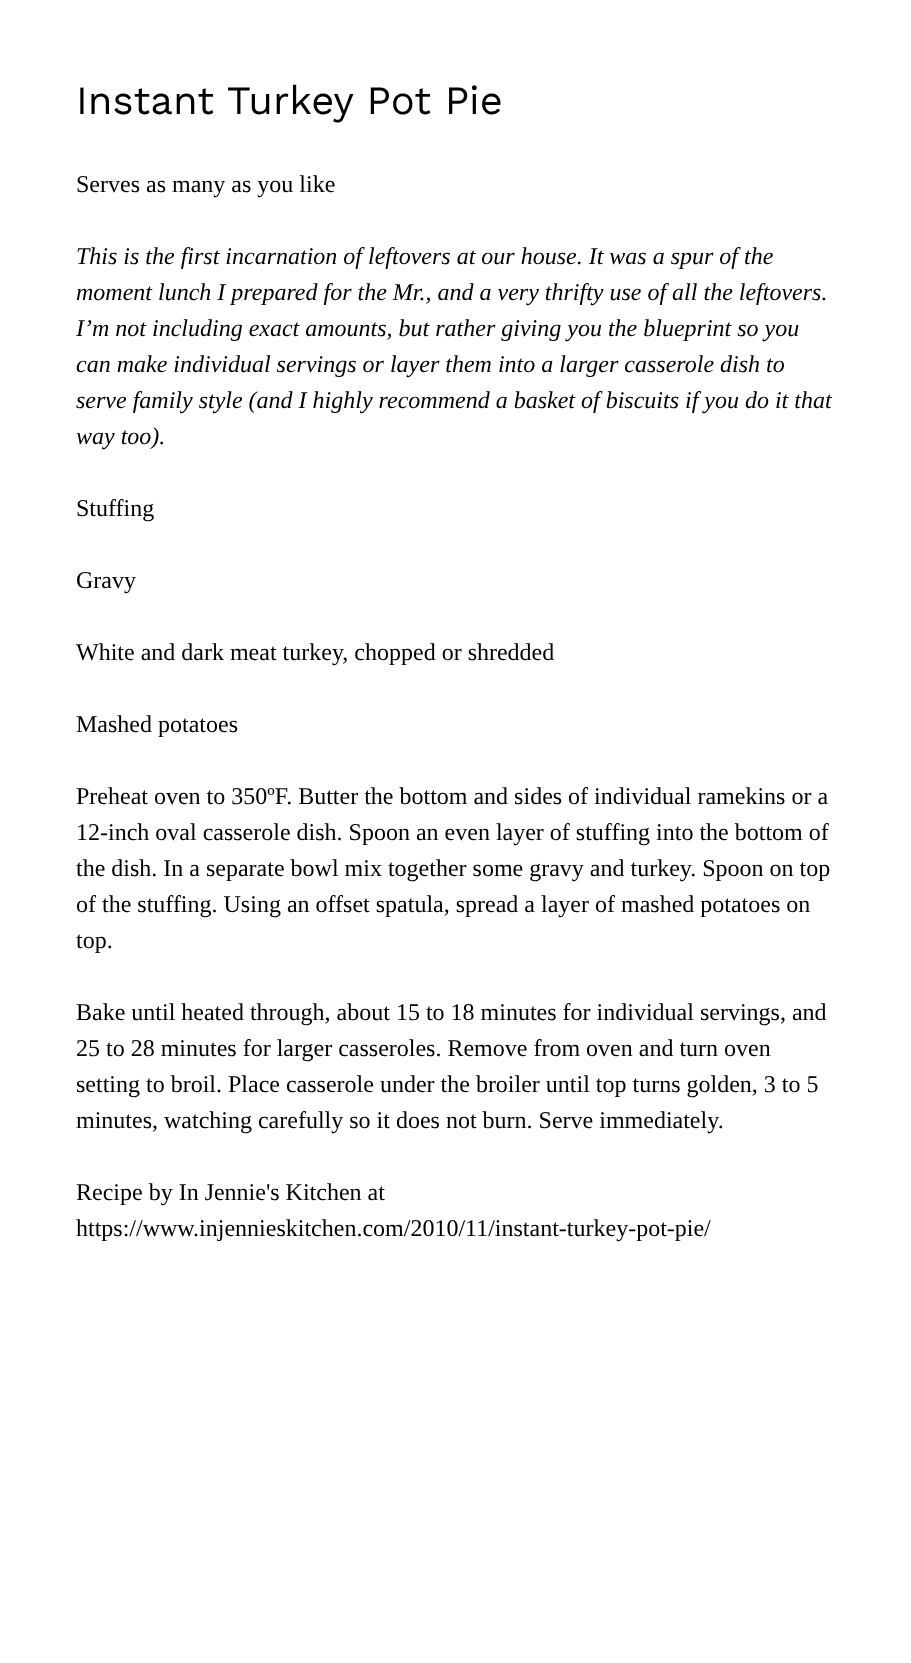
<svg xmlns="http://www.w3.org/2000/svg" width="911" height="1663">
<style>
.a{font:40px Work Sans;fill:#000}
.b{font:24px Liberation Serif;fill:#000}
.c{font:italic 24px Liberation Serif;fill:#000}
</style>
<rect width="100%" height="100%" fill="#fff"/>
<text class="a" x="76" y="114">Instant Turkey Pot Pie</text>
<text class="b" x="76" y="192">Serves as many as you like</text>
<text class="c" x="76" y="264">This is the first incarnation of leftovers at our house. It was a spur of the</text>
<text class="c" x="76" y="300">moment lunch I prepared for the Mr., and a very thrifty use of all the leftovers.</text>
<text class="c" x="76" y="336">I’m not including exact amounts, but rather giving you the blueprint so you</text>
<text class="c" x="76" y="372">can make individual servings or layer them into a larger casserole dish to</text>
<text class="c" x="76" y="408">serve family style (and I highly recommend a basket of biscuits if you do it that</text>
<text class="c" x="76" y="444">way too).</text>
<text class="b" x="76" y="516">Stuffing</text>
<text class="b" x="76" y="588">Gravy</text>
<text class="b" x="76" y="660">White and dark meat turkey, chopped or shredded</text>
<text class="b" x="76" y="732">Mashed potatoes</text>
<text class="b" x="76" y="804">Preheat oven to 350ºF. Butter the bottom and sides of individual ramekins or a</text>
<text class="b" x="76" y="840">12-inch oval casserole dish. Spoon an even layer of stuffing into the bottom of</text>
<text class="b" x="76" y="876">the dish. In a separate bowl mix together some gravy and turkey. Spoon on top</text>
<text class="b" x="76" y="912">of the stuffing. Using an offset spatula, spread a layer of mashed potatoes on</text>
<text class="b" x="76" y="948">top.</text>
<text class="b" x="76" y="1020">Bake until heated through, about 15 to 18 minutes for individual servings, and</text>
<text class="b" x="76" y="1056">25 to 28 minutes for larger casseroles. Remove from oven and turn oven</text>
<text class="b" x="76" y="1092">setting to broil. Place casserole under the broiler until top turns golden, 3 to 5</text>
<text class="b" x="76" y="1128">minutes, watching carefully so it does not burn. Serve immediately.</text>
<text class="b" x="76" y="1200">Recipe by In Jennie's Kitchen at</text>
<text class="b" x="76" y="1236">https://www.injennieskitchen.com/2010/11/instant-turkey-pot-pie/</text>
</svg>
